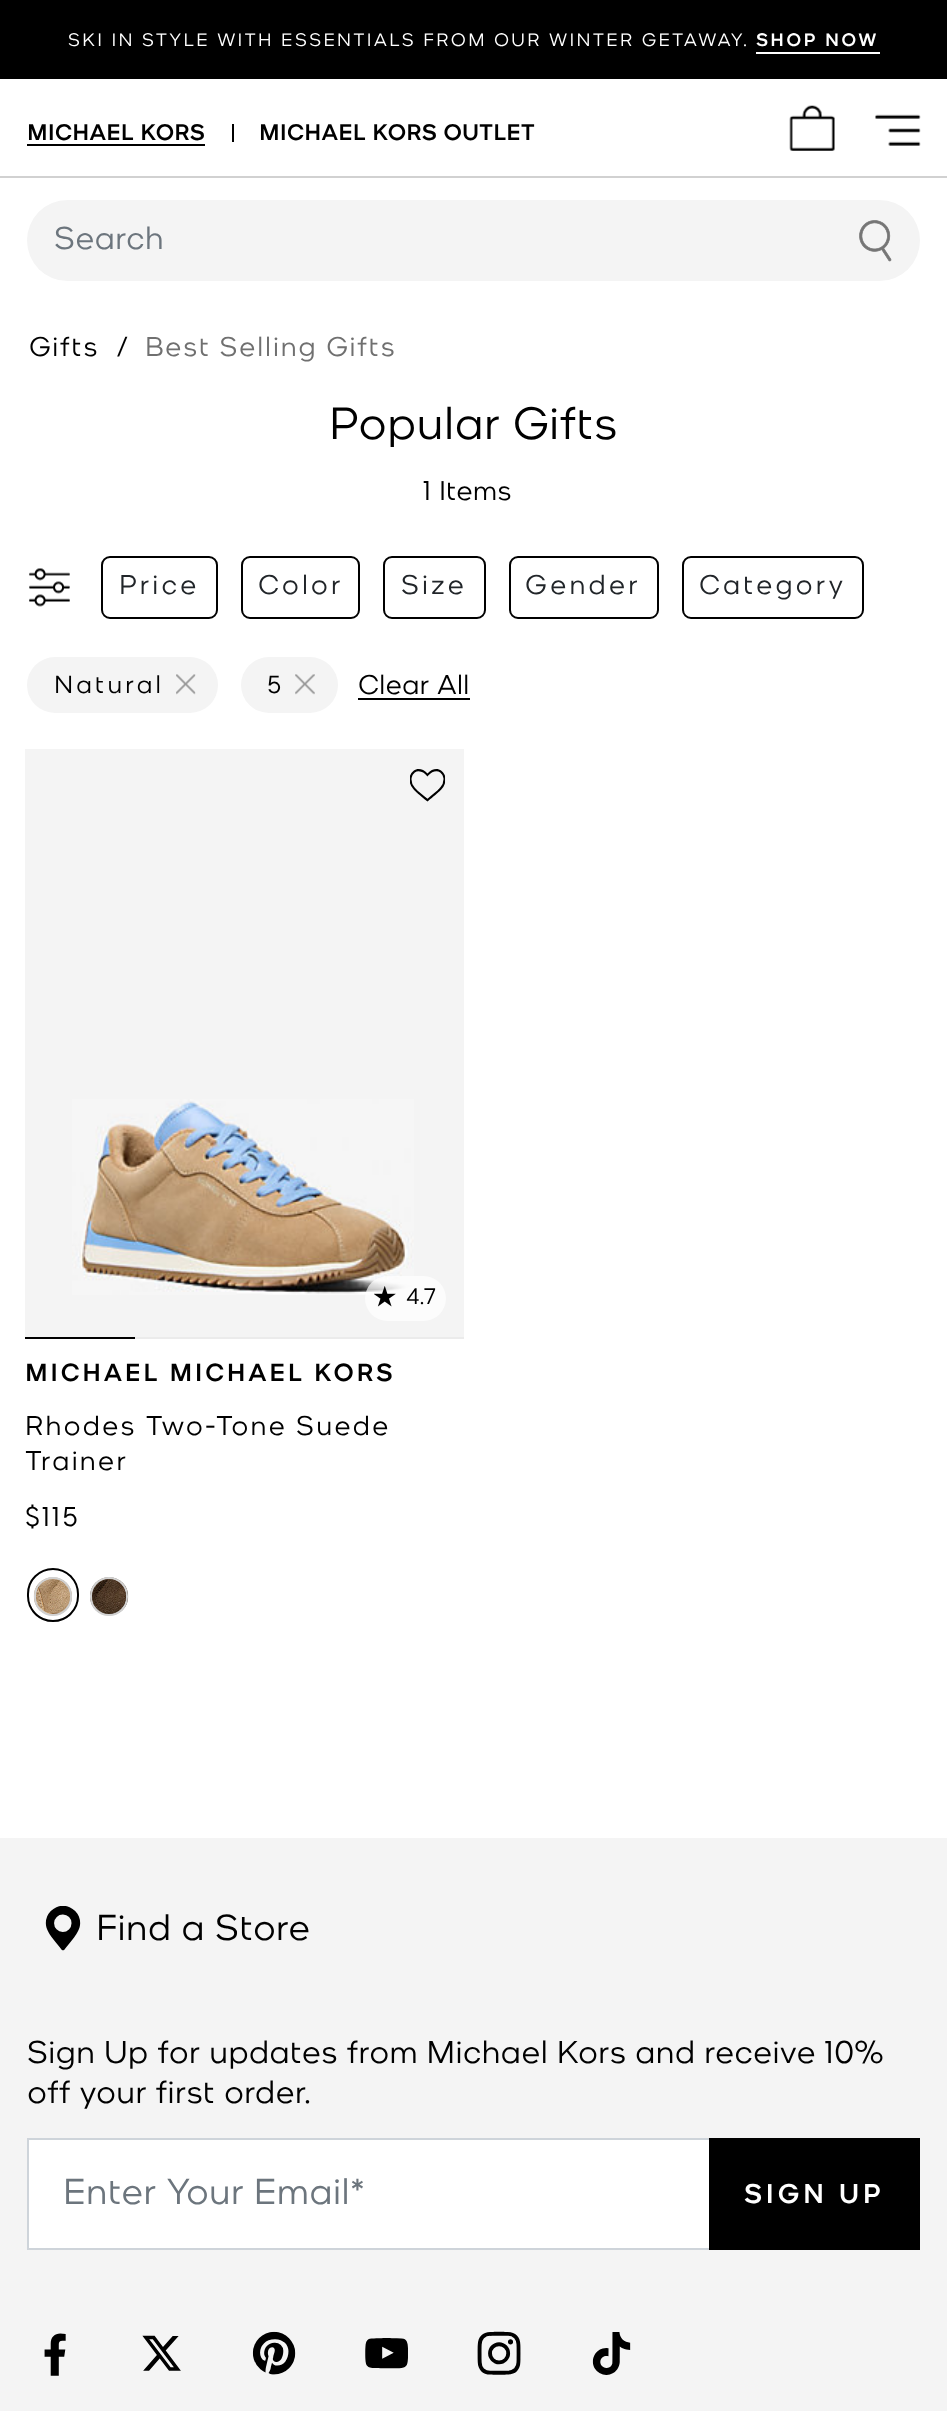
<svg xmlns="http://www.w3.org/2000/svg" width="947" height="2411">
<style>
.a{font:300 18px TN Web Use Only;letter-spacing:2.25px;fill:#fff}
.b{font:500 18px TN Web Use Only;letter-spacing:2.25px;fill:#fff}
.c{font:500 22.5px TN Web Use Only;fill:#000}
.d{font:300 31.5px TN Web Use Only;fill:#6c757d}
.e{font:300 27px TN Web Use Only;letter-spacing:1.4px;fill:#000}
.f{font:300 27px TN Web Use Only;letter-spacing:1.4px;fill:#707070}
.g{font:300 45px TN Web Use Only;fill:#000}
.h{font:300 27px TN Web Use Only;fill:#000}
.i{font:300 27px TN Web Use Only;letter-spacing:2.75px;fill:#212529}
.j{font:300 24.75px TN Web Use Only;letter-spacing:2.75px;fill:#000}
.k{font:300 22.5px TN Web Use Only;fill:#000}
.l{font:500 24.75px TN Web Use Only;letter-spacing:2.5px;fill:#000}
.m{font:300 27px TN Web Use Only;letter-spacing:1.8px;fill:#000}
.n{font:300 36px TN Web Use Only;fill:#000}
.o{font:300 31.5px TN Web Use Only;fill:#000}
.p{font:300 36px TN Web Use Only;fill:#6c757d}
.q{font:500 27px TN Web Use Only;letter-spacing:3.5px;fill:#fff}
</style>
<rect width="100%" height="100%" fill="#fff"/>
<path fill="#000" d="M0 0h947v79H0z"/>
<path fill="#fff" d="M756 52h124v2H756z"/>
<path fill="#d1d1d1" d="M0 176h947v2H0z"/>
<path fill="#000" d="M27 144h178v2H27z"/>
<path fill="#000" d="M232 124h2v18H232z"/>
<image href="1.png" x="789" y="105" width="46" height="46"/>
<image href="2.png" x="875" y="114" width="46" height="32"/>
<rect fill="#f4f4f4" x="27" y="200" width="893" height="81" rx="40.5"/>
<image href="3.png" x="859" y="220" width="33" height="42"/>
<image href="4.png" x="29" y="568" width="41" height="39"/>
<rect fill="none" stroke="#000" stroke-width="2" x="102" y="557" width="115" height="61" rx="8"/>
<rect fill="none" stroke="#000" stroke-width="2" x="242" y="557" width="117" height="61" rx="8"/>
<rect fill="none" stroke="#000" stroke-width="2" x="384" y="557" width="101" height="61" rx="8"/>
<rect fill="none" stroke="#000" stroke-width="2" x="510" y="557" width="148" height="61" rx="8"/>
<rect fill="none" stroke="#000" stroke-width="2" x="683" y="557" width="180" height="61" rx="8"/>
<rect fill="#f4f4f4" x="27" y="657" width="191" height="56" rx="28"/>
<image href="5.png" x="176" y="674" width="20" height="21"/>
<rect fill="#f4f4f4" x="241" y="657" width="97" height="56" rx="28"/>
<image href="6.png" x="295" y="674" width="20" height="21"/>
<path fill="#000" d="M358 698h112v2H358z"/>
<path fill="#f4f4f4" d="M25 749h439v588H25z"/>
<image href="7.png" x="410" y="769" width="36" height="33"/>
<image href="8.png" x="72" y="1099" width="342" height="196"/>
<path fill="#000" d="M25 1337h110v2H25z"/>
<path fill="#ebebeb" d="M135 1337h329v2H135z"/>
<rect fill="#ffffffb3" x="365" y="1276" width="81" height="45" rx="22.5"/>
<image href="9.png" x="374" y="1286" width="22" height="21"/>
<rect fill="none" stroke="#000" stroke-width="2" x="28" y="1569" width="50" height="52" rx="25"/>
<image href="10.png" x="33" y="1577" width="39" height="39"/>
<rect fill="none" stroke="#d1d1d1" stroke-width="2" x="35" y="1578" width="36" height="37" rx="18"/>
<image href="11.png" x="36" y="1579" width="34" height="34"/>
<image href="12.png" x="90" y="1577" width="39" height="39"/>
<rect fill="none" stroke="#d1d1d1" stroke-width="2" x="91" y="1578" width="36" height="37" rx="18"/>
<image href="13.png" x="92" y="1579" width="34" height="34"/>
<path fill="#f4f4f4" d="M0 1838h947v573H0z"/>
<image href="14.png" x="45" y="1906" width="36" height="45"/>
<path fill="#fff" d="M29 2140h680v108H29z"/>
<path fill="#ced4da" d="M27 2138h682v2H27z"/>
<path fill="#ced4da" d="M27 2248h682v2H27z"/>
<path fill="#ced4da" d="M27 2138h2v112H27z"/>
<path fill="#000" d="M709 2138h211v112H709z"/>
<image href="15.png" x="44" y="2333" width="22" height="43"/>
<image href="16.png" x="142" y="2335" width="39" height="36"/>
<image href="17.png" x="252" y="2331" width="44" height="44"/>
<image href="18.png" x="365" y="2338" width="43" height="31"/>
<image href="19.png" x="477" y="2331" width="44" height="44"/>
<image href="20.png" x="592" y="2332" width="39" height="43"/>
<text class="a" x="68" y="46">SKI IN STYLE WITH ESSENTIALS FROM OUR WINTER GETAWAY.</text>
<text class="b" x="756" y="46">SHOP NOW</text>
<text class="c" x="27" y="140">MICHAEL KORS</text>
<text class="c" x="259" y="140">MICHAEL KORS OUTLET</text>
<text class="d" x="54" y="249">Search</text>
<text class="e" x="29" y="356">Gifts</text>
<text class="e" x="117" y="356">/</text>
<text class="f" x="145" y="356">Best Selling Gifts</text>
<text class="g" x="329" y="439">Popular Gifts</text>
<text class="h" x="423" y="500">1 Items</text>
<text class="i" x="119" y="594">Price</text>
<text class="i" x="258" y="594">Color</text>
<text class="i" x="401" y="594">Size</text>
<text class="i" x="525" y="594">Gender</text>
<text class="i" x="699" y="594">Category</text>
<text class="j" x="54" y="693">Natural</text>
<text class="j" x="267" y="693">5</text>
<text class="h" x="358" y="694">Clear All</text>
<text class="k" x="406" y="1304">4.7</text>
<text class="l" x="25" y="1381">MICHAEL MICHAEL KORS</text>
<text class="m" x="25" y="1435">Rhodes Two-Tone Suede</text>
<text class="m" x="25" y="1470">Trainer</text>
<text class="m" x="25" y="1526">$115</text>
<text class="n" x="96" y="1940">Find a Store</text>
<text class="o" x="27" y="2063">Sign Up for updates from Michael Kors and receive 10%</text>
<text class="o" x="27" y="2103">off your first order.</text>
<text class="p" x="63" y="2204">Enter Your Email*</text>
<text class="q" x="744" y="2203">SIGN UP</text>
</svg>
